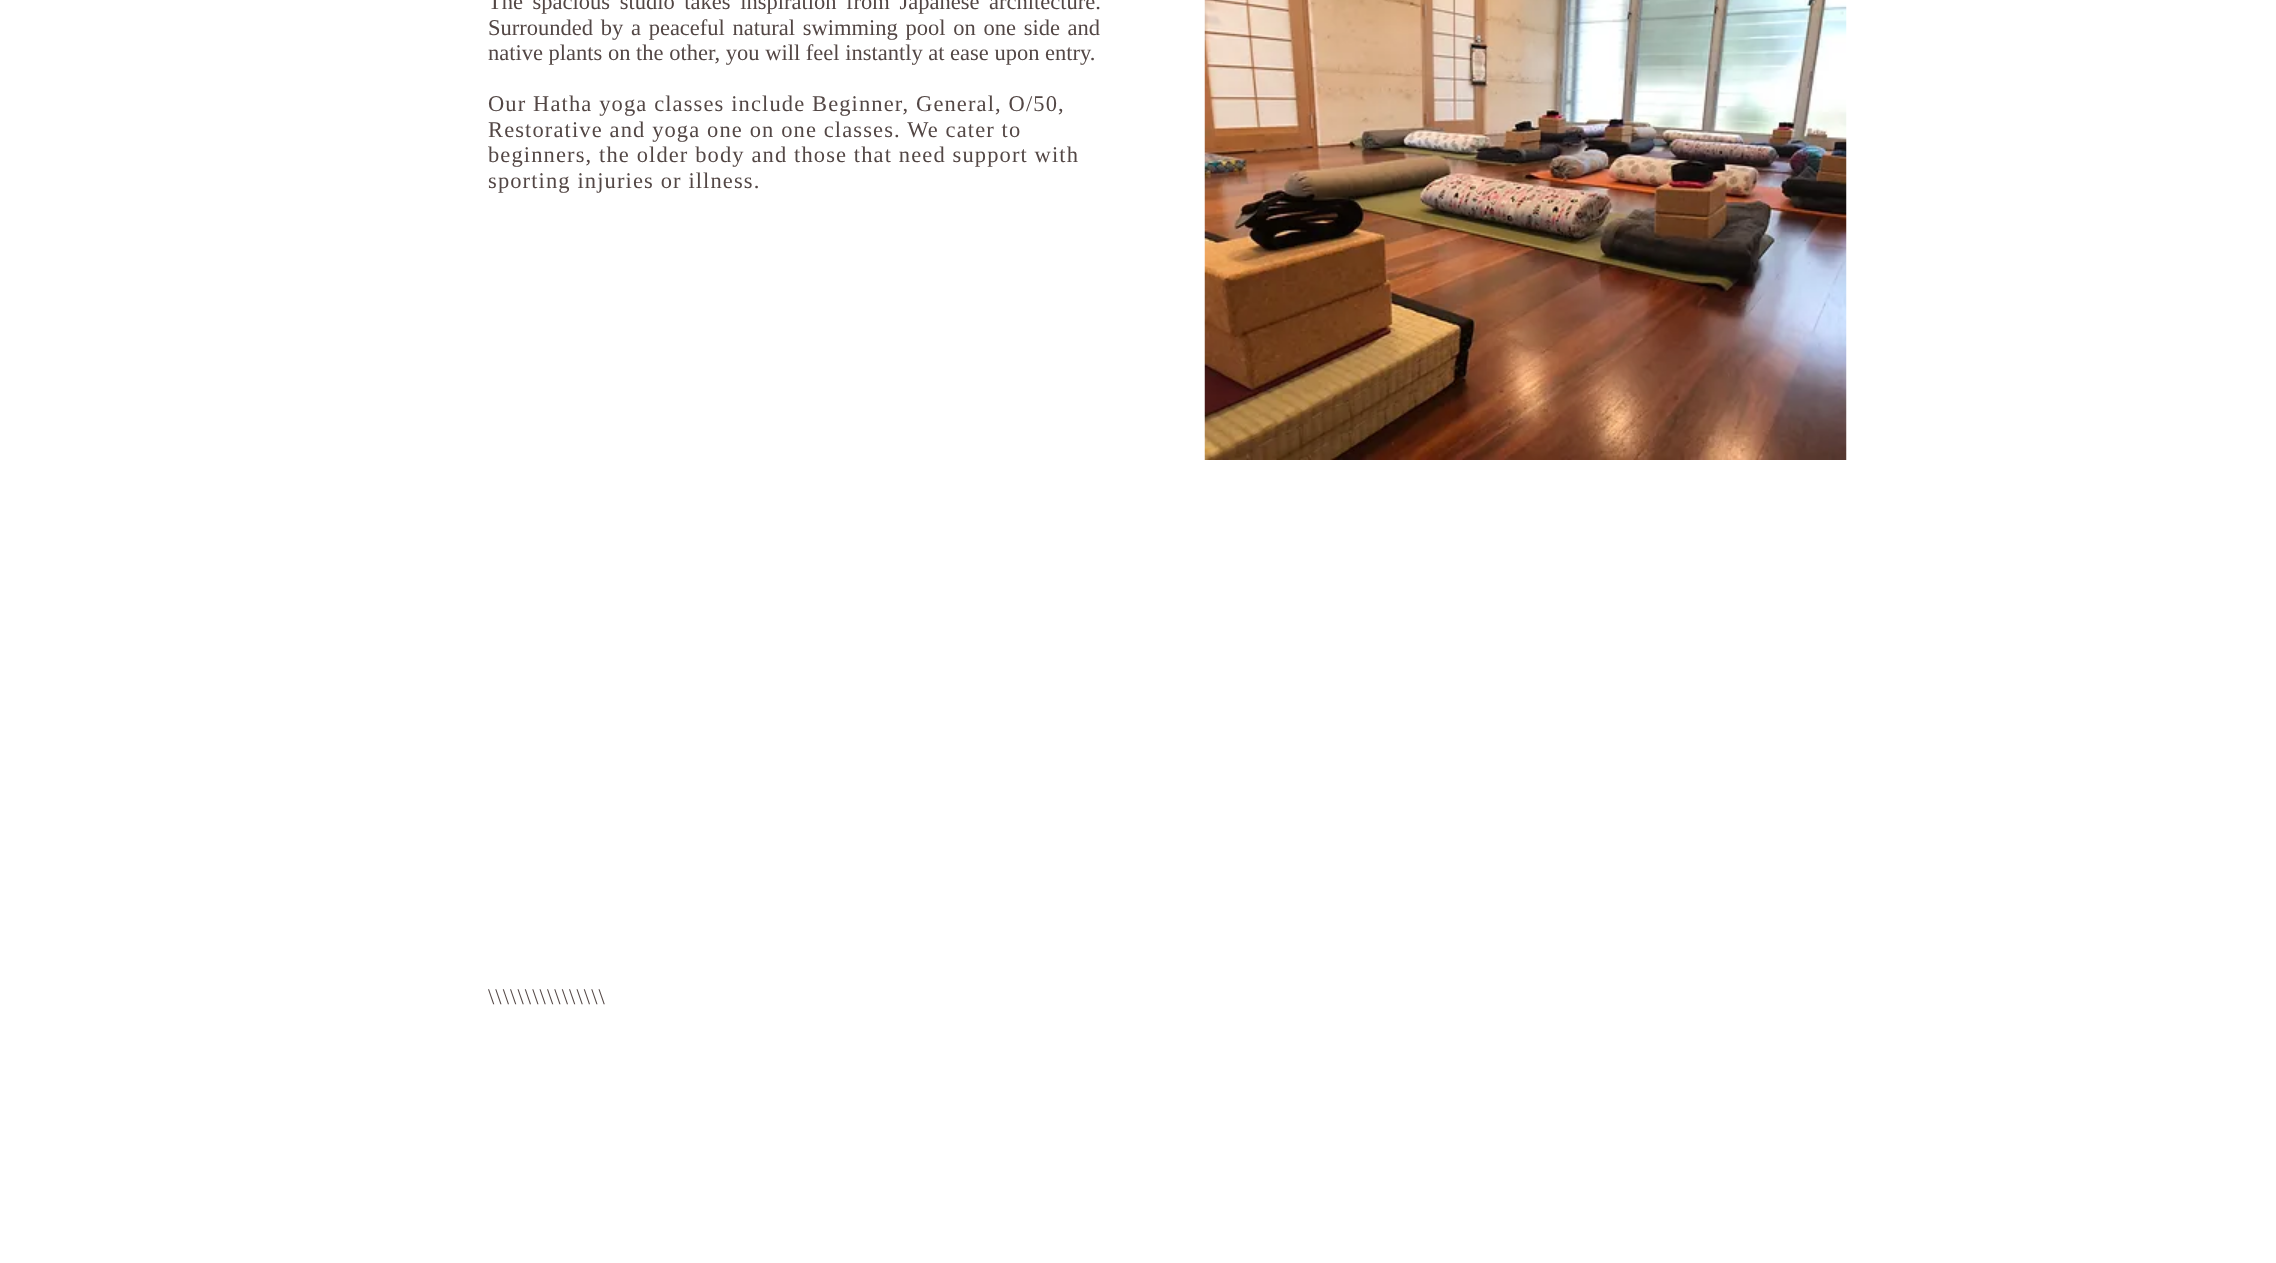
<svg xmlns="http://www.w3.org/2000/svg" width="2276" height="1263">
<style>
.a{font:22.5px Liberation Serif;fill:#534745}
.b{font:22.5px Liberation Serif;letter-spacing:1.12px;fill:#534745}
</style>
<rect width="100%" height="100%" fill="#fff"/>
<image href="1.png" x="1204" y="0" width="643" height="460"/>
<text class="a" x="488" y="9" word-spacing="4">The spacious studio takes inspiration from Japanese architecture.</text>
<text class="a" x="488" y="35" word-spacing="2.1">Surrounded by a peaceful natural swimming pool on one side and</text>
<text class="a" x="488" y="60">native plants on the other, you will feel instantly at ease upon entry.</text>
<text class="b" x="488" y="111">Our Hatha yoga classes include Beginner, General, O/50,</text>
<text class="b" x="488" y="137">Restorative and yoga one on one classes. We cater to</text>
<text class="b" x="488" y="162">beginners, the older body and those that need support with</text>
<text class="b" x="488" y="188">sporting injuries or illness.</text>
<text class="b" x="488" y="1004">\\\\\\\\\\\\\\\\</text>
</svg>
